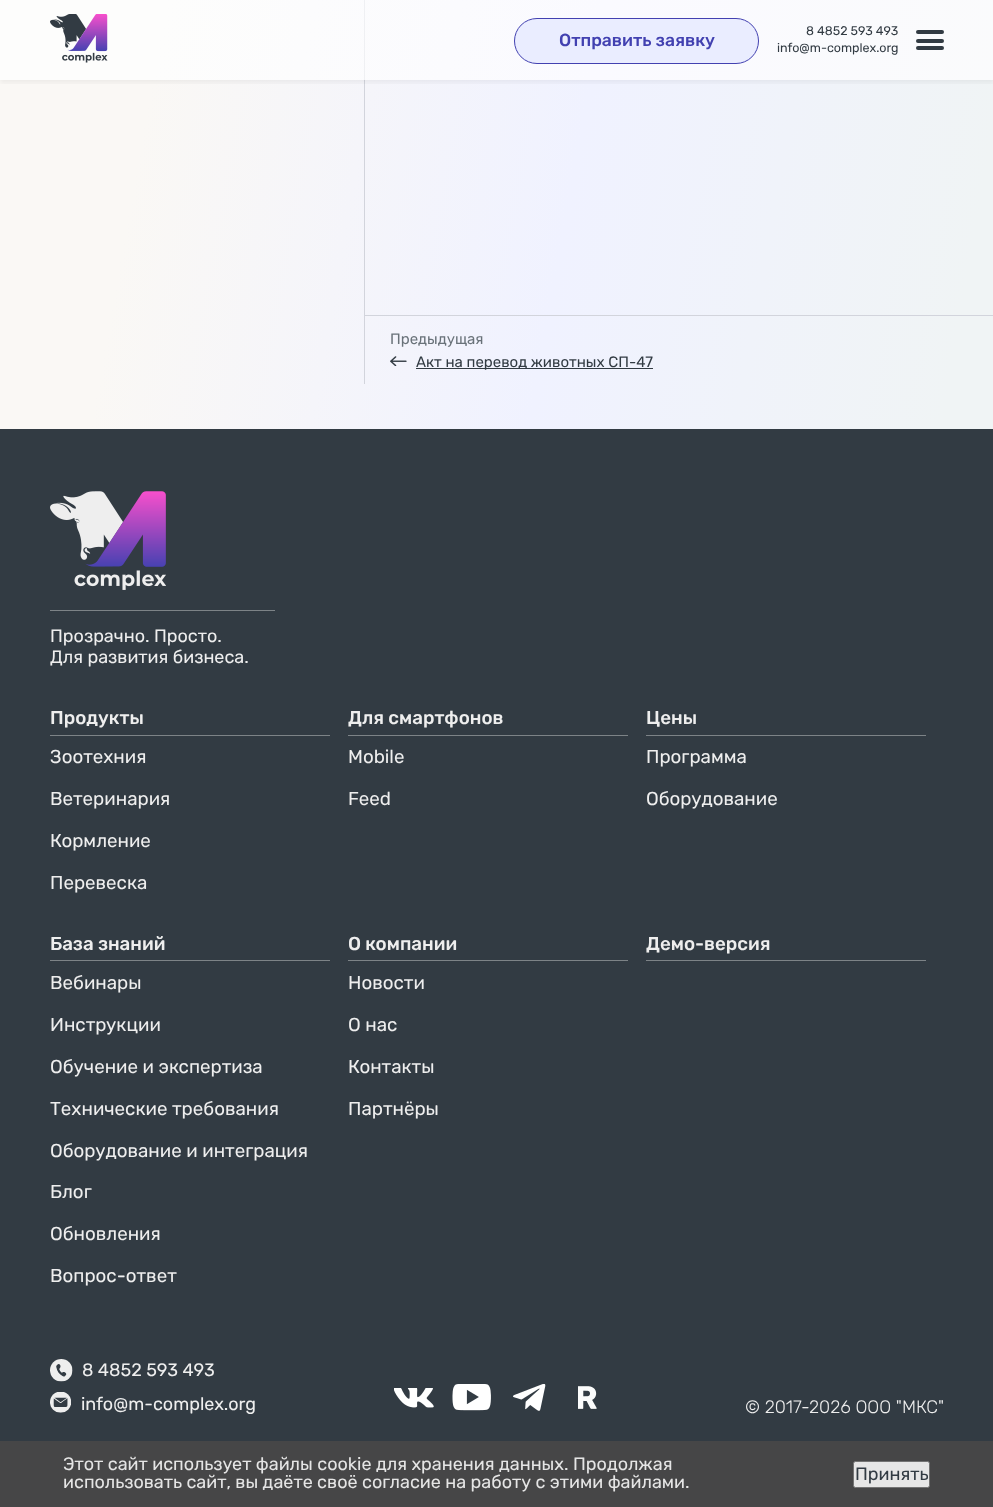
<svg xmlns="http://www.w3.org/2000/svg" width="993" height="1507">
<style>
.a{font:500 17.5px Rubik;fill:#4241b1}
.b{font:12.5px Rubik;fill:#323b43}
.c{font:15px Rubik;fill:#697279}
.d{font:15px Rubik;fill:#323b43}
.e{font:18px Rubik;fill:#eee}
.f{font:500 18.75px Rubik;fill:#eee}
.g{font:18.75px Rubik;fill:#eee}
.h{font:300 18px Rubik;fill:#eee}
.i{font:18px Rubik;fill:#e5e5e5}
.j{font:18px Rubik;fill:#323b43}
</style>
<defs>
<linearGradient id="g1" gradientUnits="userSpaceOnUse" x1="-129" y1="-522" x2="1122" y2="-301"><stop offset="0.3" stop-color="#faf8f5"/><stop offset="0.64" stop-color="#f0f2ff"/><stop offset="0.96" stop-color="#f0f4f5"/></linearGradient>
<linearGradient id="g2" gradientUnits="userSpaceOnUse" x1="-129" y1="-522" x2="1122" y2="-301"><stop offset="0.3" stop-color="#fdfdfc"/><stop offset="0.64" stop-color="#fafaff"/><stop offset="0.96" stop-color="#fafbfc"/></linearGradient>
<clipPath id="clip1"><path d="M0 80h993v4H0z"/></clipPath>
</defs>
<rect width="100%" height="100%" fill="#fff"/>
<path fill="url(#g1)" d="M0 80h993v349H0z"/>
<path fill="url(#g2)" d="M0 0h993v80H0z"/>
<path fill="#d2d4dc" d="M364 80h1v304H364z"/>
<path fill="#eff0f3" d="M364 0h1v80H364z"/>
<g clip-path="url(#clip1)">
<path fill="#0000000d" filter="blur(2.5px)" d="M0 3h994v80H0z"/>
</g>
<image href="1.png" x="50" y="14" width="58" height="49"/>
<rect fill="#eaedff" stroke="#4241b1" x="514.5" y="18.5" width="244" height="45" rx="22.5"/>
<rect fill="#323b43" x="916" y="30" width="28" height="4" rx="2"/>
<rect fill="#323b43" x="916" y="39" width="28" height="4" rx="2"/>
<rect fill="#323b43" x="916" y="46" width="28" height="4" rx="2"/>
<path fill="#d2d4dc" d="M365 315h628v1H365z"/>
<image href="2.png" x="390" y="356" width="17" height="10"/>
<path fill="#323b43" d="M416 368h237v1H416z"/>
<path fill="#323b43" d="M0 429h993v1012H0z"/>
<image href="3.png" x="50" y="491" width="116" height="99"/>
<path fill="#7d8387" d="M50 610h225v1H50z"/>
<path fill="#7d8387" d="M50 735h280v1H50z"/>
<path fill="#7d8387" d="M348 735h280v1H348z"/>
<path fill="#7d8387" d="M646 735h280v1H646z"/>
<path fill="#7d8387" d="M50 960h280v1H50z"/>
<path fill="#7d8387" d="M348 960h280v1H348z"/>
<path fill="#7d8387" d="M646 960h280v1H646z"/>
<image href="4.png" x="50" y="1359" width="23" height="23"/>
<image href="5.png" x="50" y="1392" width="21" height="21"/>
<image href="6.png" x="394" y="1388" width="40" height="20"/>
<image href="7.png" x="452" y="1384" width="39" height="27"/>
<image href="8.png" x="513" y="1384" width="33" height="27"/>
<image href="9.png" x="578" y="1386" width="19" height="23"/>
<path fill="#464647" d="M0 1441h993v66H0z"/>
<rect fill="#e6e6e6" stroke="#737373" x="853.5" y="1461.5" width="76" height="26" rx="2"/>
<text class="a" x="559" y="46">Отправить заявку</text>
<text class="b" x="806" y="35">8 4852 593 493</text>
<text class="b" x="777" y="52">info@m-complex.org</text>
<text class="c" x="390" y="344">Предыдущая</text>
<text class="d" x="416" y="367">Акт на перевод животных СП-47</text>
<text class="e" x="50" y="642">Прозрачно. Просто.</text>
<text class="e" x="50" y="663">Для развития бизнеса.</text>
<text class="f" x="50" y="724">Продукты</text>
<text class="g" x="50" y="763">Зоотехния</text>
<text class="g" x="50" y="805">Ветеринария</text>
<text class="g" x="50" y="847">Кормление</text>
<text class="g" x="50" y="889">Перевеска</text>
<text class="f" x="348" y="724">Для смартфонов</text>
<text class="g" x="348" y="763">Mobile</text>
<text class="g" x="348" y="805">Feed</text>
<text class="f" x="646" y="724">Цены</text>
<text class="g" x="646" y="763">Программа</text>
<text class="g" x="646" y="805">Оборудование</text>
<text class="f" x="50" y="950">База знаний</text>
<text class="g" x="50" y="989">Вебинары</text>
<text class="g" x="50" y="1031">Инструкции</text>
<text class="g" x="50" y="1073">Обучение и экспертиза</text>
<text class="g" x="50" y="1115">Технические требования</text>
<text class="g" x="50" y="1157">Оборудование и интеграция</text>
<text class="g" x="50" y="1198">Блог</text>
<text class="g" x="50" y="1240">Обновления</text>
<text class="g" x="50" y="1282">Вопрос-ответ</text>
<text class="f" x="348" y="950">О компании</text>
<text class="g" x="348" y="989">Новости</text>
<text class="g" x="348" y="1031">О нас</text>
<text class="g" x="348" y="1073">Контакты</text>
<text class="g" x="348" y="1115">Партнёры</text>
<text class="f" x="646" y="950">Демо-версия</text>
<text class="e" x="82" y="1376">8 4852 593 493</text>
<text class="e" x="81" y="1410">info@m-complex.org</text>
<text class="h" x="745" y="1413">© 2017-2026 ООО "МКС"</text>
<text class="i" x="63" y="1470">Этот сайт использует файлы cookie для хранения данных. Продолжая</text>
<text class="i" x="63" y="1488">использовать сайт, вы даёте своё согласие на работу с этими файлами.</text>
<text class="j" x="855" y="1480">Принять</text>
</svg>
